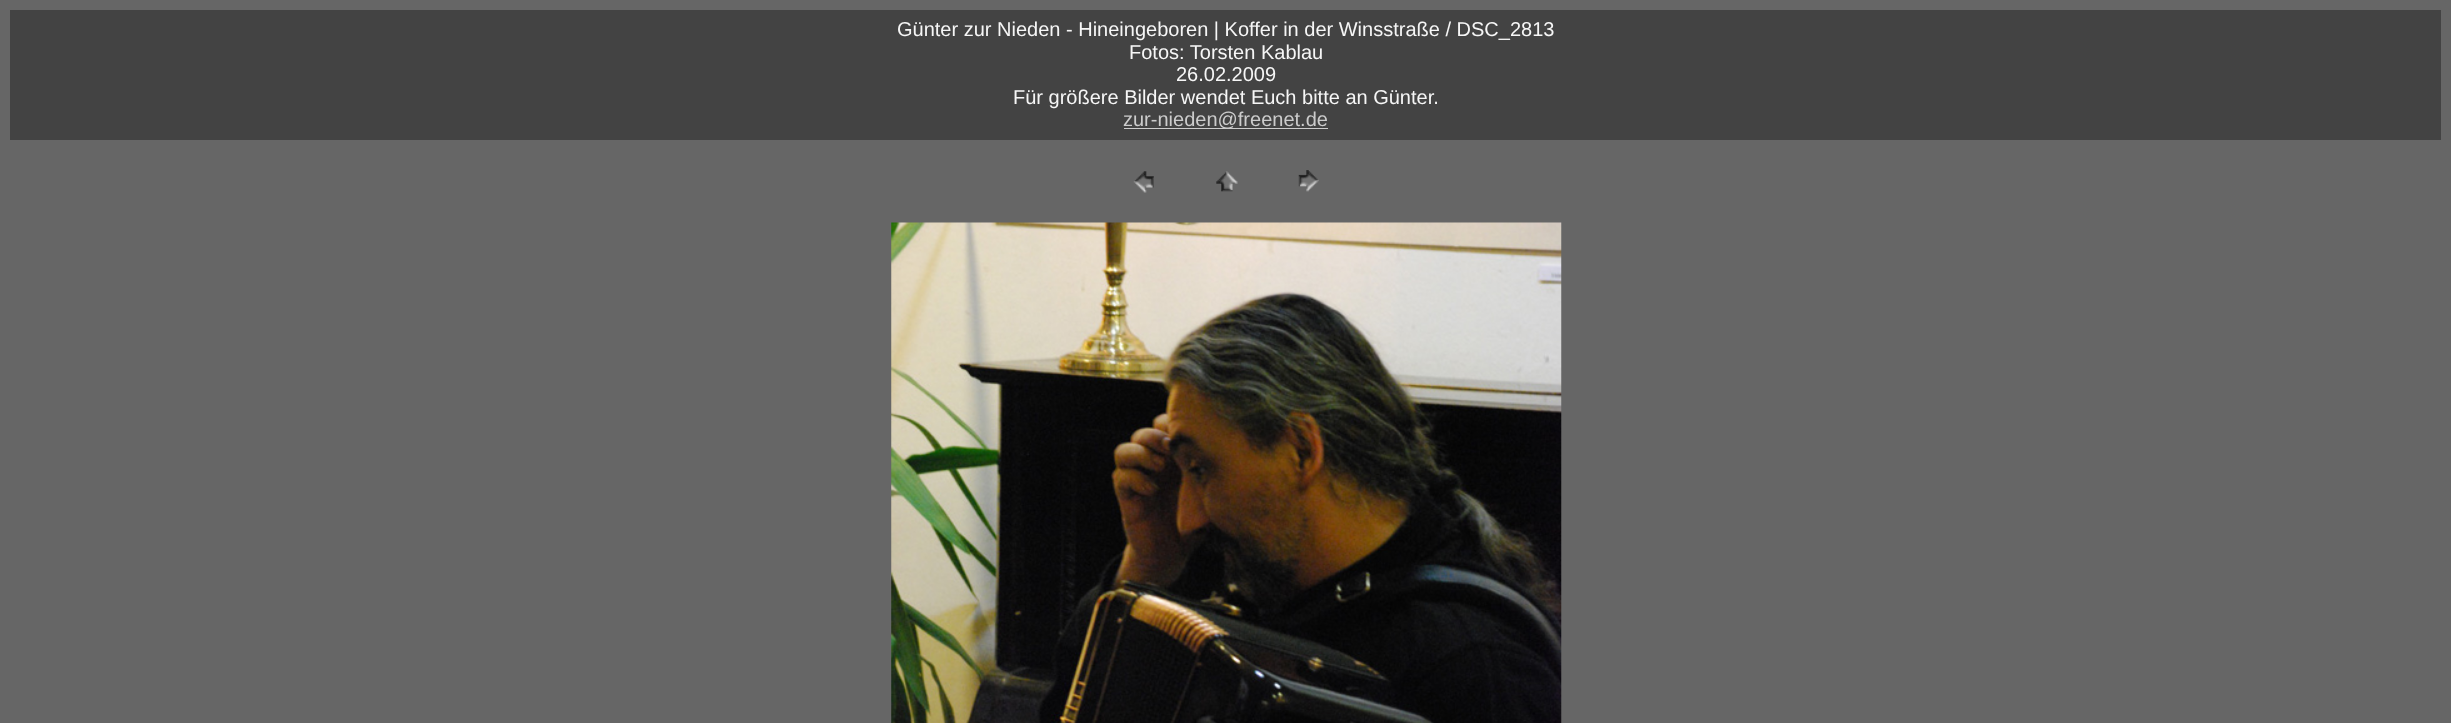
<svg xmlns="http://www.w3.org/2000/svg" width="2451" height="723">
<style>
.a{font:20px Liberation Sans;fill:#f6f6f6}
.b{font:20px Liberation Sans;fill:#ccc}
</style>
<rect width="100%" height="100%" fill="#666"/>
<path fill="#434343" d="M10 10h2431v130H10z"/>
<path fill="#ccc" d="M1124 128h204v1H1124z"/>
<image href="1.png" x="1133" y="171" width="21" height="22"/>
<image href="2.png" x="1216" y="171" width="22" height="21"/>
<image href="3.png" x="1298" y="170" width="21" height="22"/>
<image href="4.png" x="891" y="222" width="671" height="501"/>
<text class="a" x="897" y="36">Günter zur Nieden - Hineingeboren | Koffer in der Winsstraße / DSC_2813</text>
<text class="a" x="1129" y="59">Fotos: Torsten Kablau</text>
<text class="a" x="1176" y="81">26.02.2009</text>
<text class="a" x="1013" y="104">Für größere Bilder wendet Euch bitte an Günter.</text>
<text class="b" x="1123" y="126">zur-nieden@freenet.de</text>
</svg>
